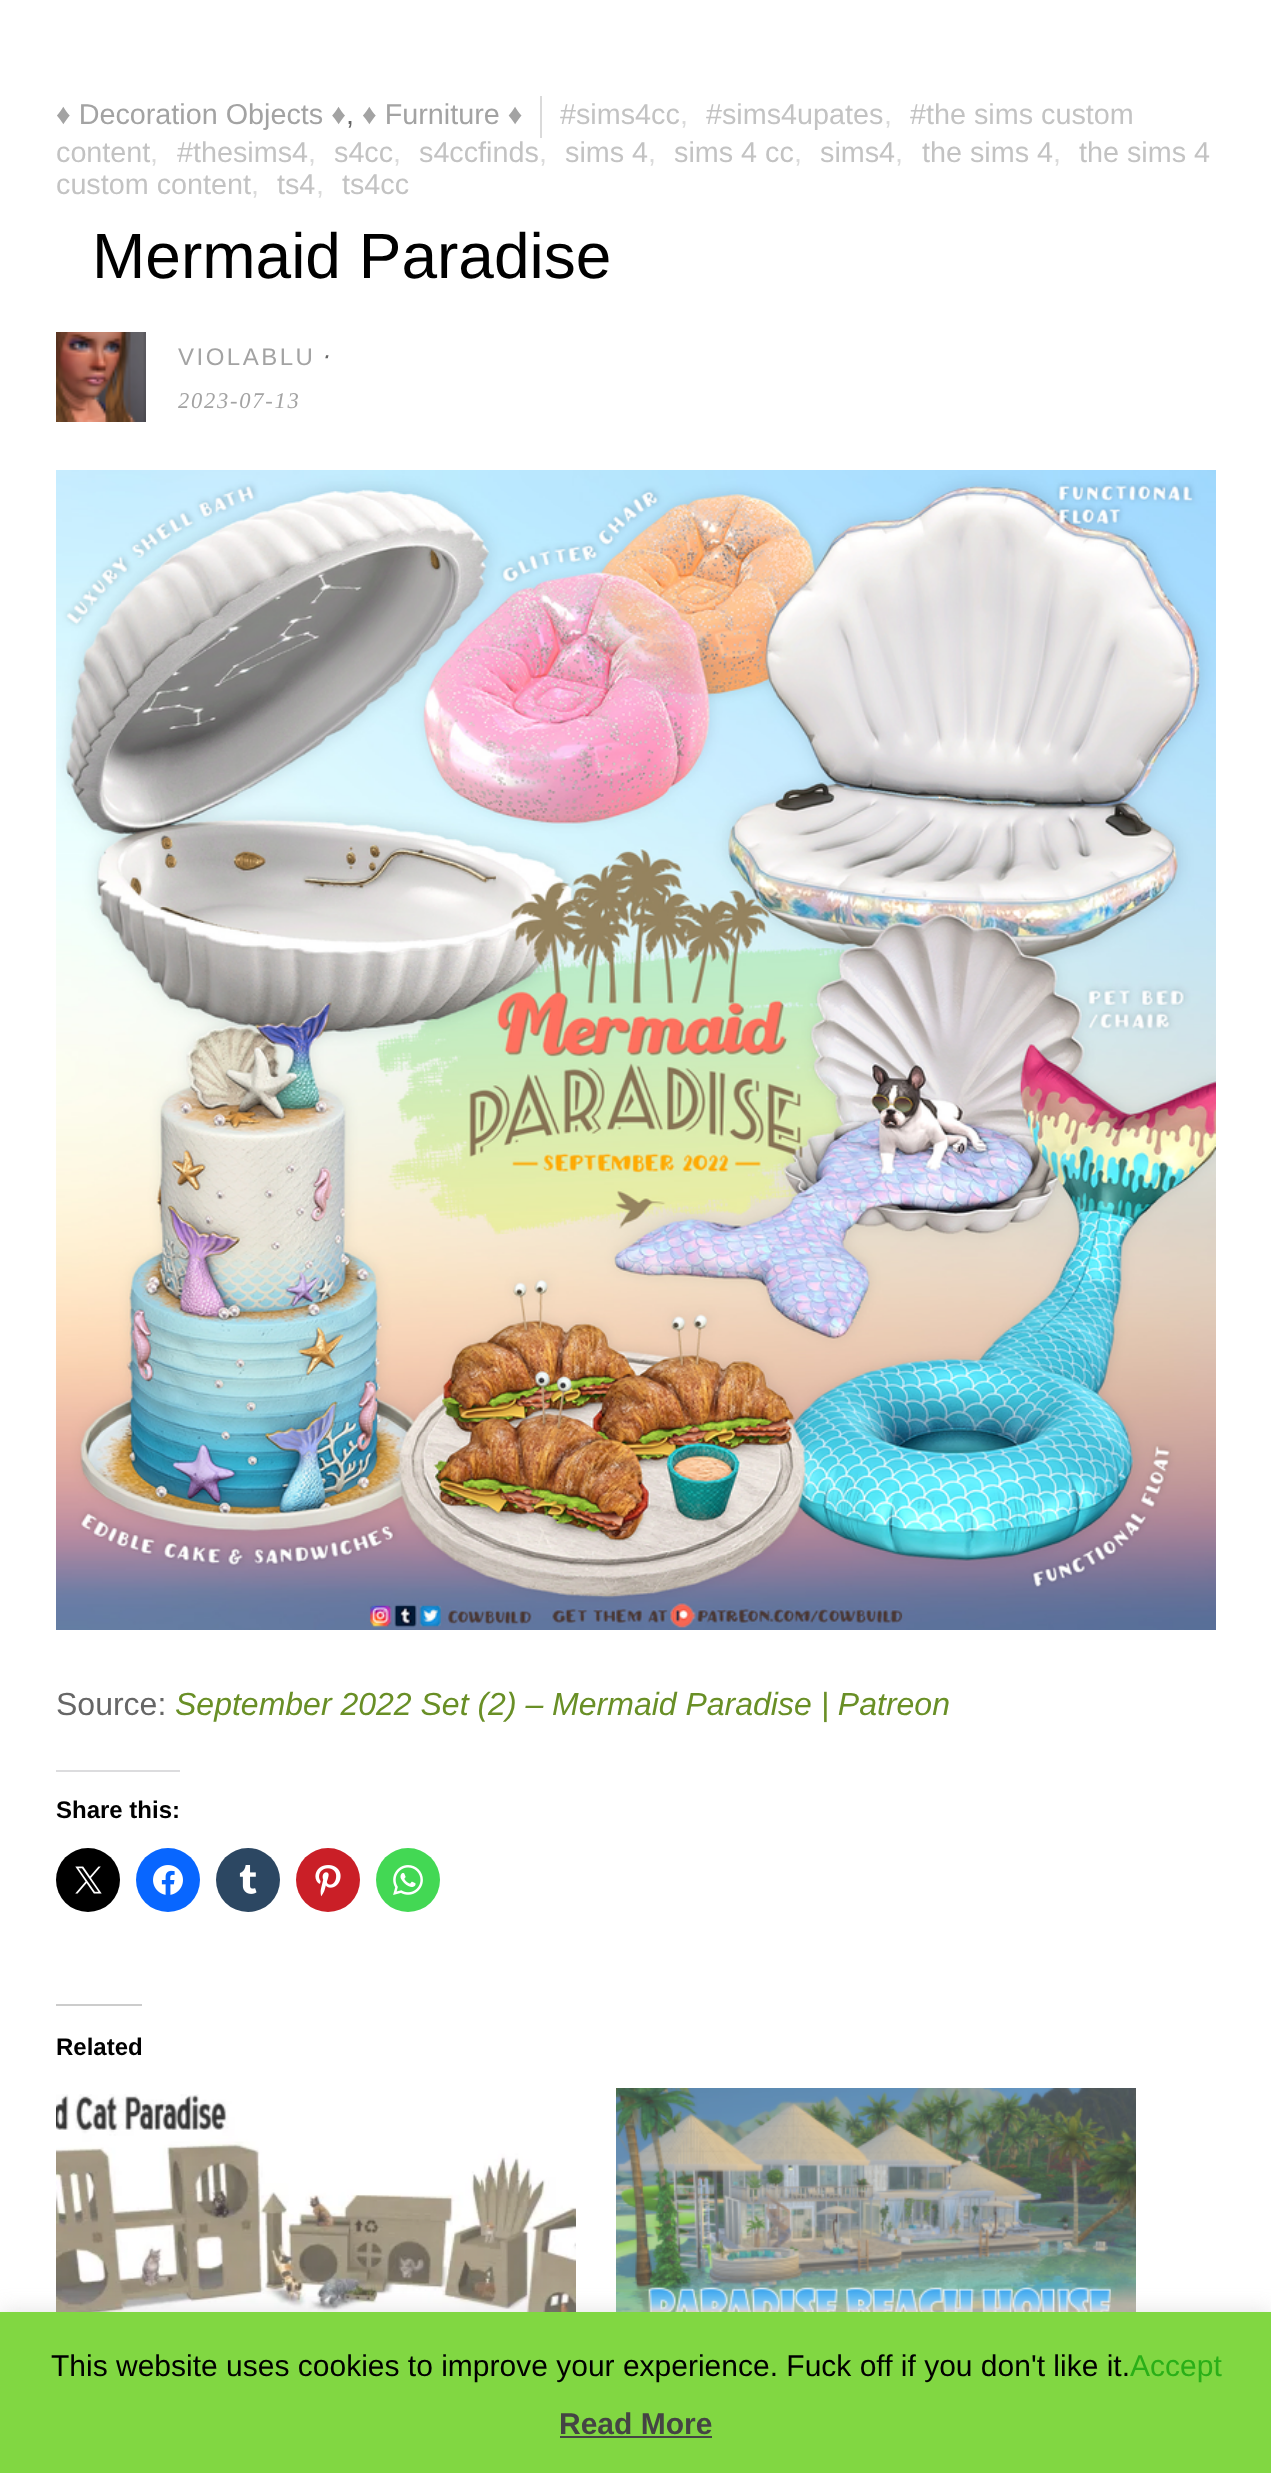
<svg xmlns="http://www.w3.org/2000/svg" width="1271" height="2473">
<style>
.a{font:28.75px Liberation Sans;fill:#a3a3a3}
.b{font:28.75px Liberation Sans;fill:#c3c3c3}
.c{font:28.75px Liberation Sans;fill:#dadada}
.d{font:28.75px Liberation Sans;fill:#666}
.e{font:64px Liberation Sans;fill:#000}
.f{font:24px Liberation Sans;letter-spacing:2.5px;fill:#a3a3a3}
.g{font:italic 24px DejaVu Sans;fill:#666}
.h{font:italic 22.5px Liberation Serif;letter-spacing:1.75px;fill:#a3a3a3}
.i{font:32px Liberation Sans;fill:#666}
.j{font:italic 32px Liberation Sans;fill:#698f26}
.k{font:bold 24px Liberation Sans;fill:#000}
.l{font:30px Liberation Sans;fill:#000}
.m{font:30px Liberation Sans;fill:#2aaf18}
.n{font:bold 30px Liberation Sans;fill:#444}
</style>
<rect width="100%" height="100%" fill="#fff"/>
<image href="1.png" x="0" y="0" width="1271" height="16"/>
<path fill="#dadada" d="M540 96h2v42H540z"/>
<image href="2.png" x="56" y="332" width="90" height="90"/>
<image href="3.png" x="56" y="470" width="1160" height="1160"/>
<path fill="#dcdcde" d="M56 1770h124v2H56z"/>
<circle fill="#000" cx="88" cy="1880" r="32"/>
<image href="4.png" x="75" y="1866" width="27" height="28"/>
<circle fill="#0866ff" cx="168" cy="1880" r="32"/>
<image href="5.png" x="153" y="1865" width="30" height="30"/>
<circle fill="#2c4762" cx="248" cy="1880" r="32"/>
<image href="6.png" x="239" y="1865" width="18" height="29"/>
<circle fill="#ca1f27" cx="328" cy="1880" r="32"/>
<image href="7.png" x="315" y="1865" width="26" height="32"/>
<circle fill="#43d854" cx="408" cy="1880" r="32"/>
<image href="8.png" x="393" y="1865" width="30" height="30"/>
<path fill="#ccc" d="M56 2004h86v2H56z"/>
<image href="9.png" x="56" y="2094" width="520" height="218"/>
<image href="10.png" x="616" y="2088" width="520" height="224"/>
<path fill="#acabab4d" filter="blur(10px)" d="M0 2310h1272v162H0z"/>
<path fill="#81d742" d="M0 2312h1271v161H0z"/>
<path fill="#444" d="M560 2436h152v2H560z"/>
<text class="a" x="56" y="124">♦ Decoration Objects ♦</text>
<text class="b" x="560" y="124">#sims4cc</text>
<text class="c" x="680" y="124">,</text>
<text class="b" x="706" y="124">#sims4upates</text>
<text class="c" x="884" y="124">,</text>
<text class="b" x="910" y="124">#the sims custom</text>
<text class="b" x="56" y="162">content</text>
<text class="c" x="150" y="162">,</text>
<text class="b" x="177" y="162">#thesims4</text>
<text class="c" x="308" y="162">,</text>
<text class="b" x="334" y="162">s4cc</text>
<text class="c" x="393" y="162">,</text>
<text class="b" x="419" y="162">s4ccfinds</text>
<text class="c" x="539" y="162">,</text>
<text class="b" x="565" y="162">sims 4</text>
<text class="c" x="648" y="162">,</text>
<text class="b" x="674" y="162">sims 4 cc</text>
<text class="c" x="794" y="162">,</text>
<text class="b" x="820" y="162">sims4</text>
<text class="c" x="895" y="162">,</text>
<text class="b" x="922" y="162">the sims 4</text>
<text class="c" x="1053" y="162">,</text>
<text class="b" x="1079" y="162">the sims 4</text>
<text class="b" x="56" y="194">custom content</text>
<text class="c" x="251" y="194">,</text>
<text class="b" x="277" y="194">ts4</text>
<text class="c" x="316" y="194">,</text>
<text class="b" x="342" y="194">ts4cc</text>
<text class="d" x="346" y="124">,</text>
<text class="a" x="362" y="124">♦ Furniture ♦</text>
<text class="e" x="92" y="278">Mermaid Paradise</text>
<text class="f" x="178" y="365">VIOLABLU</text>
<text class="g" x="321" y="365">⋅</text>
<text class="h" x="178" y="408">2023-07-13</text>
<text class="i" x="56" y="1715">Source:</text>
<text class="j" x="175" y="1715">September 2022 Set (2) – Mermaid Paradise | Patreon</text>
<text class="k" x="56" y="1818">Share this:</text>
<text class="k" x="56" y="2055">Related</text>
<text class="l" x="51" y="2376">This website uses cookies to improve your experience. Fuck off if you don't like it.</text>
<text class="m" x="1130" y="2376">Accept</text>
<text class="n" x="559" y="2434">Read More</text>
</svg>
